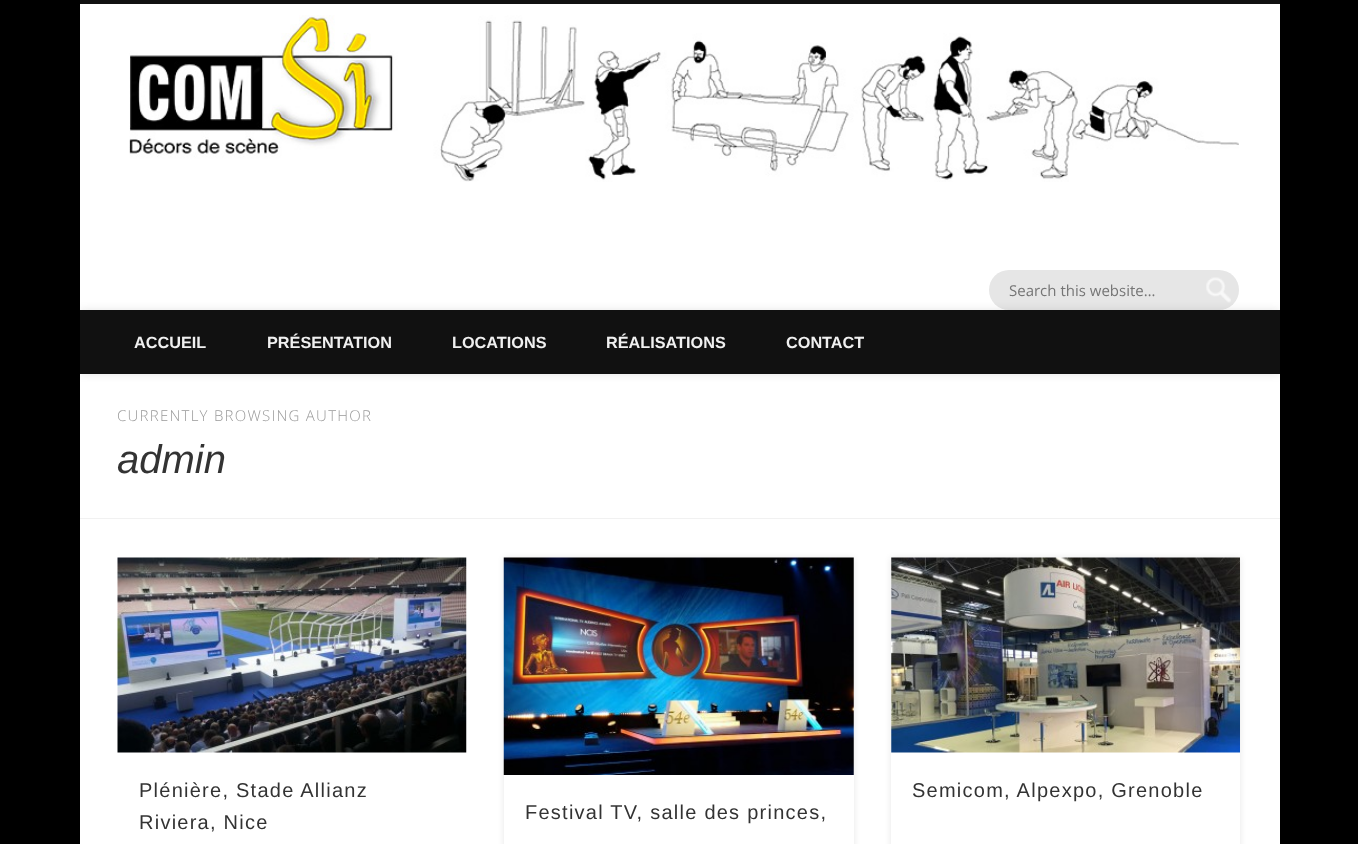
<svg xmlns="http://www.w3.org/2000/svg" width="1358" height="844">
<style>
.a{font:15px Open Sans;fill:#757575}
.b{font:bold 16.25px Liberation Sans;fill:#f0f0f0}
.c{font:300 15px Open Sans;letter-spacing:1.25px;fill:#999}
.d{font:italic 40px Liberation Sans;fill:#333}
.e{font:20px Liberation Sans;letter-spacing:1.25px;fill:#333}
</style>
<defs>
<clipPath id="clip1"><path d="M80 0h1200v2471H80z"/></clipPath>
</defs>
<rect width="100%" height="100%" fill="#000"/>
<path fill="#fff" d="M80 4h1200v840H80z"/>
<path fill="#111" d="M80 0h1200v4H80z"/>
<image href="1.png" x="129" y="15" width="1110" height="167"/>
<rect fill="#e6e6e6" x="989" y="270" width="250" height="40" rx="20"/>
<image href="2.png" x="1206" y="277" width="25" height="26"/>
<g clip-path="url(#clip1)">
<path fill="#0000001a" filter="blur(4.5px)" d="M80 310h1200v64H80z"/>
</g>
<path fill="#111" d="M80 310h1200v64H80z"/>
<path fill="#f1f1f1" d="M80 518h1200v1H80z"/>
<image href="3.png" x="117" y="557" width="350" height="196"/>
<path fill="#0000001a" filter="blur(3px)" d="M891 558h349v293H891z"/>
<path fill="#fff" d="M891 558h349v286H891z"/>
<image href="4.png" x="891" y="557" width="349" height="196"/>
<path fill="#0000001a" filter="blur(3px)" d="M504 558h350v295H504z"/>
<path fill="#fff" d="M504 558h350v286H504z"/>
<image href="5.png" x="503" y="557" width="351" height="218"/>
<text class="a" x="1009" y="296">Search this website…</text>
<text class="b" x="134" y="348">ACCUEIL</text>
<text class="b" x="267" y="348">PRÉSENTATION</text>
<text class="b" x="452" y="348">LOCATIONS</text>
<text class="b" x="606" y="348">RÉALISATIONS</text>
<text class="b" x="786" y="348">CONTACT</text>
<text class="c" x="117" y="421">CURRENTLY BROWSING AUTHOR</text>
<text class="d" x="117" y="473">admin</text>
<text class="e" x="139" y="797">Plénière, Stade Allianz</text>
<text class="e" x="139" y="829">Riviera, Nice</text>
<text class="e" x="912" y="797">Semicom, Alpexpo, Grenoble</text>
<text class="e" x="525" y="819">Festival TV, salle des princes,</text>
</svg>
